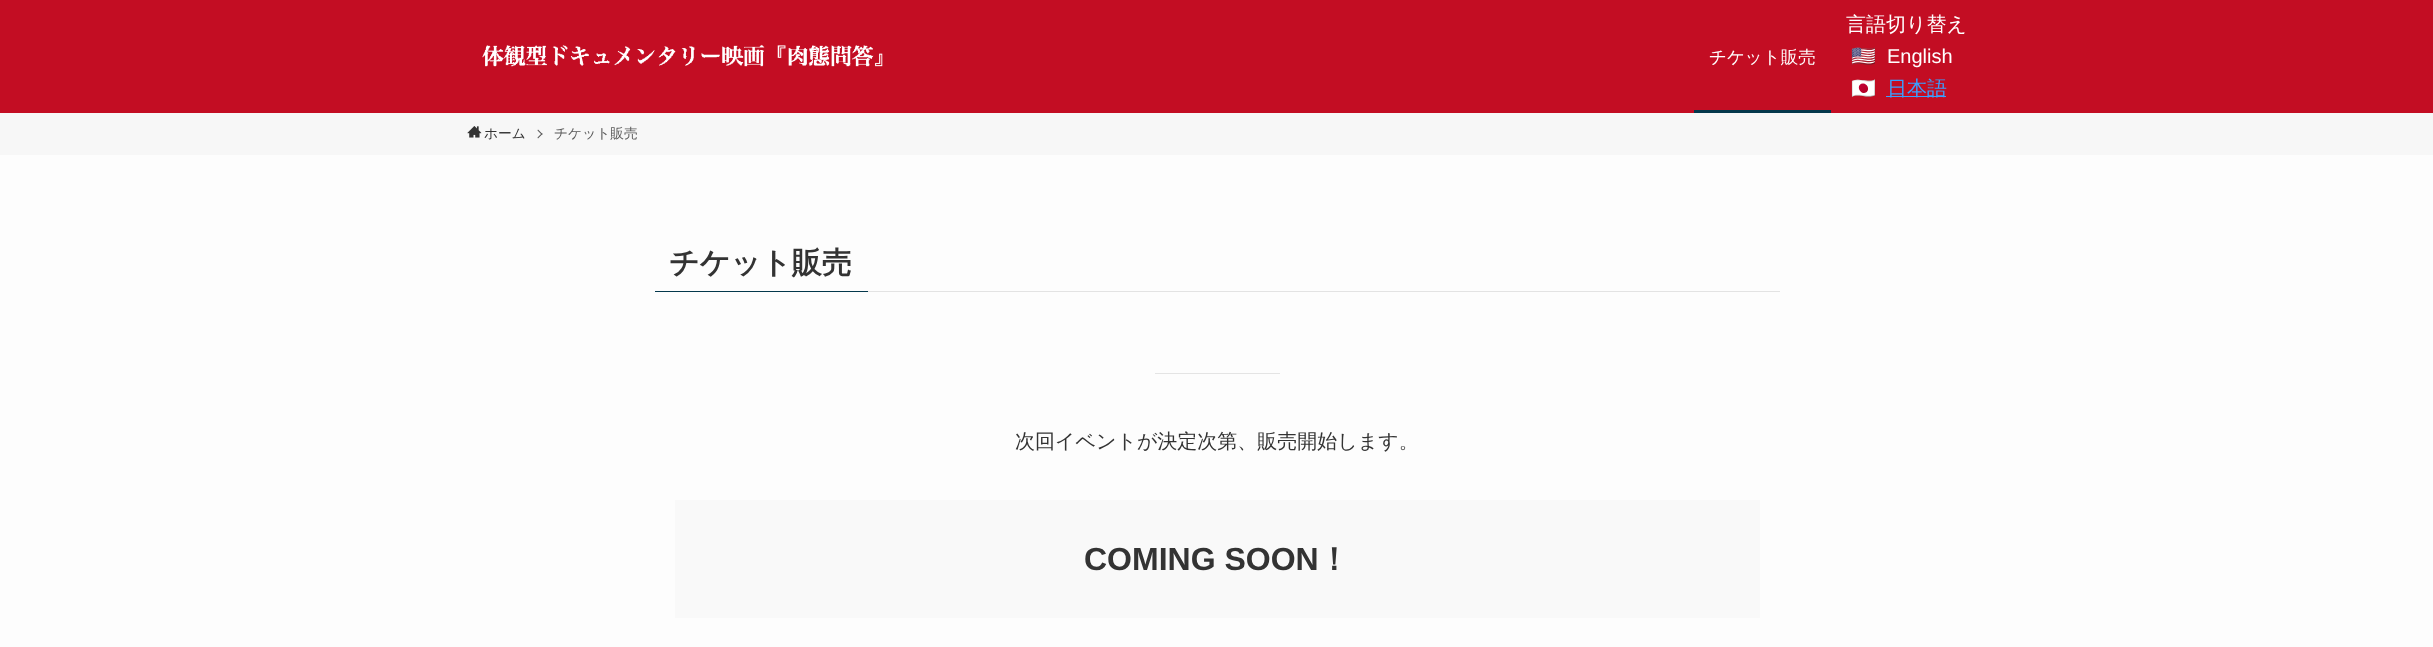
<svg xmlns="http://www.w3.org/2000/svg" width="2433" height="647">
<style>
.a{font:500 17.5px WenQuanYi Zen Hei;fill:#fff}
.b{font:500 20px WenQuanYi Zen Hei;fill:#fff}
.c{font:20px Noto Color Emoji;fill:#fff}
.d{font:20px Liberation Sans;fill:#fff}
.e{font:500 20px WenQuanYi Zen Hei;fill:#39a0ff}
.f{font:500 13.75px WenQuanYi Zen Hei;fill:#333}
.g{font:500 13.75px WenQuanYi Zen Hei;fill:#5a5a5a}
.h{font:bold 30px WenQuanYi Zen Hei;fill:#333}
.i{font:500 20px WenQuanYi Zen Hei;fill:#333}
.j{font:bold 32px Liberation Sans;fill:#333}
.k{font:bold 32px WenQuanYi Zen Hei;fill:#333}
</style>
<rect width="100%" height="100%" fill="#fdfdfd"/>
<path fill="#c30d23" d="M0 0h2433v113H0z"/>
<image href="1.png" x="482" y="44" width="401" height="23"/>
<path fill="#04384c" d="M1694 110h137v3H1694z"/>
<path fill="#39a0ff" d="M1886 96h60v1H1886z"/>
<path fill="#f7f7f7" d="M0 113h2433v42H0z"/>
<image href="2.png" x="467" y="126" width="15" height="12"/>
<path fill="#5a5a5a" d="M538 129.5l4.5 4.5l-.5 1l-4.5-4.5z"/>
<path fill="#5a5a5a" d="M542 133l.5 1l-4.5 4.5l-.5-1z"/>
<path fill="#e3e3e3" d="M868 291h912v1H868z"/>
<path fill="#04384c" d="M655 291h213v1H655z"/>
<path fill="#e4e4e4" d="M1155 373h125v1H1155z"/>
<path fill="#f9f9f9" d="M675 500h1085v118H675z"/>
<text class="a" x="1709" y="63">チケット販売</text>
<text class="b" x="1846" y="31">言語切り替え</text>
<text class="c" x="1851" y="63">🇺🇸</text>
<text class="d" x="1887" y="63">English</text>
<text class="c" x="1851" y="95">🇯🇵</text>
<text class="e" x="1887" y="95">日本語</text>
<text class="f" x="484" y="138">ホーム</text>
<text class="g" x="554" y="138">チケット販売</text>
<text class="h" x="669" y="273">チケット販売</text>
<text class="i" x="1015" y="448">次回イベントが決定次第、販売開始します。</text>
<text class="j" x="1084" y="570">COMING SOON</text>
<text class="k" x="1318" y="570">！</text>
</svg>
